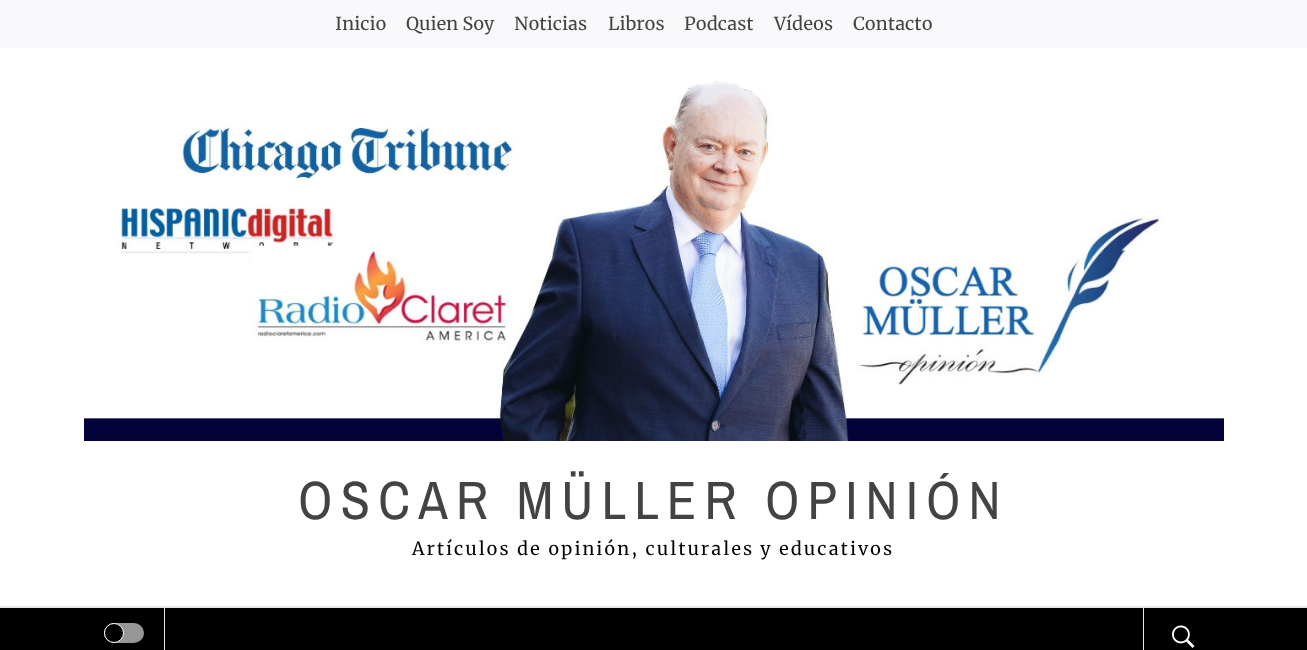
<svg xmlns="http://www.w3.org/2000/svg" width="1307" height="650">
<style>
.a{font:18px Merriweather;fill:#434343}
.b{font:54px Archivo Narrow;letter-spacing:8.1px;fill:#434343}
.c{font:18px Merriweather;letter-spacing:2px;fill:#040404}
</style>
<rect width="100%" height="100%" fill="#fff"/>
<path fill="#f9f9fb" d="M0 0h1307v48H0z"/>
<image href="1.png" x="84" y="80" width="1140" height="361"/>
<path fill="#e8e8e8" d="M0 606h1307v2H0z"/>
<path fill="#000" d="M0 608h1307v42H0z"/>
<path fill="#e8e8e8" d="M164 607h1v43H164z"/>
<rect fill="#969696" x="104" y="623" width="40" height="20" rx="10"/>
<circle fill="#000" stroke="#fff" cx="114" cy="633" r="9.5"/>
<path fill="#e8e8e8" d="M1143 607h1v43H1143z"/>
<image href="2.png" x="1172" y="625" width="23" height="23"/>
<text class="a" x="335" y="30">Inicio</text>
<text class="a" x="406" y="30">Quien Soy</text>
<text class="a" x="514" y="30">Noticias</text>
<text class="a" x="608" y="30">Libros</text>
<text class="a" x="684" y="30">Podcast</text>
<text class="a" x="774" y="30">Vídeos</text>
<text class="a" x="853" y="30">Contacto</text>
<text class="b" x="298" y="519">OSCAR MÜLLER OPINIÓN</text>
<text class="c" x="412" y="555">Artículos de opinión, culturales y educativos</text>
</svg>
